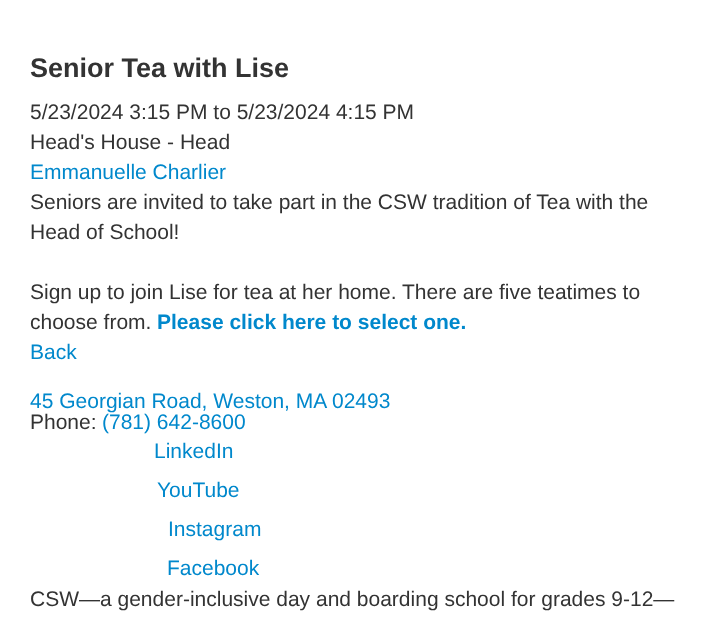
<svg xmlns="http://www.w3.org/2000/svg" width="708" height="618">
<style>
.a{font:bold 27px Liberation Sans;fill:#333}
.b{font:21px Liberation Sans;fill:#333}
.c{font:21px Liberation Sans;fill:#08c}
.d{font:bold 21px Liberation Sans;fill:#08c}
</style>
<rect width="100%" height="100%" fill="#fff"/>
<text class="a" x="30" y="77">Senior Tea with Lise</text>
<text class="b" x="30" y="119">5/23/2024 3:15 PM to 5/23/2024 4:15 PM</text>
<text class="b" x="30" y="149">Head's House - Head</text>
<text class="c" x="30" y="179">Emmanuelle Charlier</text>
<text class="b" x="30" y="209">Seniors are invited to take part in the CSW tradition of Tea with the</text>
<text class="b" x="30" y="239">Head of School!</text>
<text class="b" x="30" y="299">Sign up to join Lise for tea at her home. There are five teatimes to</text>
<text class="b" x="30" y="329">choose from.</text>
<text class="d" x="157" y="329">Please click here to select one.</text>
<text class="c" x="30" y="359">Back</text>
<text class="c" x="30" y="408">45 Georgian Road, Weston, MA 02493</text>
<text class="b" x="30" y="429">Phone:</text>
<text class="c" x="102" y="429">(781) 642-8600</text>
<text class="c" x="154" y="458">LinkedIn</text>
<text class="c" x="157" y="497">YouTube</text>
<text class="c" x="168" y="536">Instagram</text>
<text class="c" x="167" y="575">Facebook</text>
<text class="b" x="30" y="606">CSW—a gender-inclusive day and boarding school for grades 9-12—</text>
</svg>
